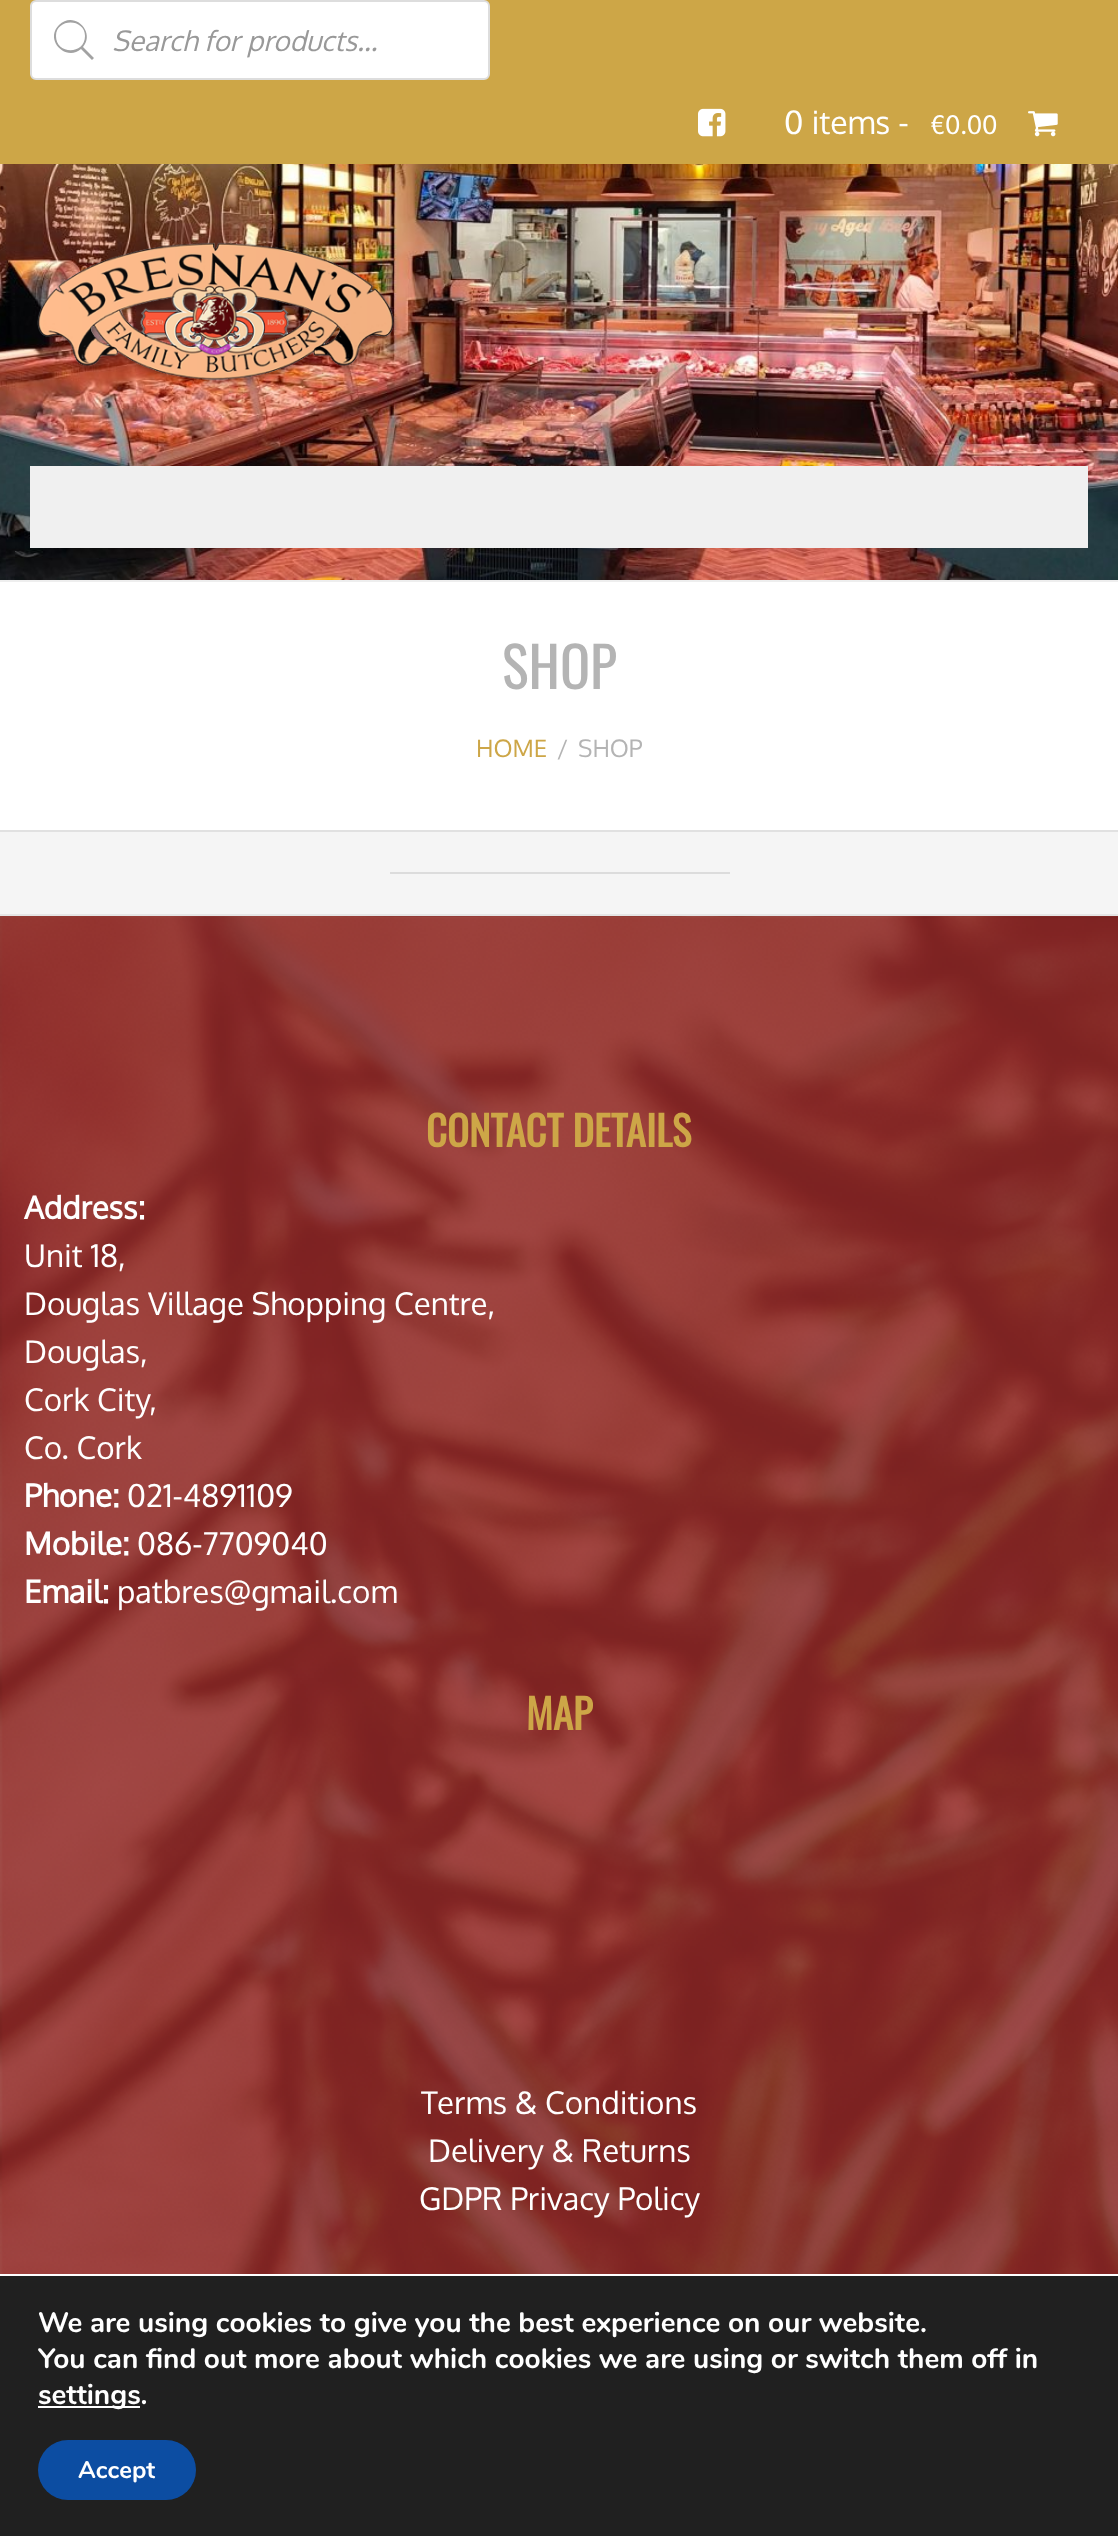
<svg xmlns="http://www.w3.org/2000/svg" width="1118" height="2536">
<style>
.a{font:italic 28px Oxygen;fill:#999}
.b{font:32px Oxygen;fill:#fff}
.c{font:25.5px Oxygen;fill:#fff}
.d{font:56px Oswald;fill:#b4b4b4}
.e{font:24px Oxygen;fill:#cda647}
.f{font:24px Oxygen;fill:#b4b4b4}
.g{font:bold 40.75px Oswald;fill:#cda647}
.h{font:bold 31.25px Oxygen;fill:#fff}
.i{font:31.25px Oxygen;fill:#fff}
.j{font:bold 28px Nunito;fill:#fff}
.k{font:bold 24px Nunito;fill:#fff}
</style>
<rect width="100%" height="100%" fill="#f5f5f5"/>
<image href="1.png" x="0" y="164" width="1118" height="416"/>
<path fill="#eee" d="M0 580h1118v2H0z"/>
<path fill="#cda647" d="M0 0h1118v164H0z"/>
<rect fill="#fff" stroke="#ddd" stroke-width="2" x="31" y="1" width="458" height="78" rx="5"/>
<path fill="#a2a2a2" d="M94 58l-11-11c13-15-9-37-24-22c-15 15 7 37 22 24l11 11zm-38-22c0-18 29-18 29 0c0 19-29 19-29 0z"/>
<image href="2.png" x="698" y="108" width="28" height="29"/>
<image href="3.png" x="1028" y="111" width="30" height="26"/>
<image href="4.png" x="37" y="242" width="362" height="144"/>
<path fill="#f0f0f0" d="M30 466h1058v82H30z"/>
<path fill="#fff" d="M0 582h1118v248H0z"/>
<path fill="#e1e1e1" d="M0 830h1118v2H0z"/>
<path fill="#dcdcdc" d="M390 872h340v2H390z"/>
<image href="5.png" x="0" y="916" width="1118" height="1358"/>
<path fill="#e5e5e5" d="M0 914h1118v2H0z"/>
<path fill="#202020" d="M0 2276h1118v260H0z"/>
<path fill="#fff" d="M0 2274h1118v2H0z"/>
<path fill="#fff" d="M38 2406h102v2H38z"/>
<rect fill="#0c4da2" x="38" y="2440" width="158" height="60" rx="30"/>
<text class="a" x="112" y="51">Search for products...</text>
<text class="b" x="784" y="134">0 items -</text>
<text class="c" x="930" y="134">€0.00</text>
<text class="d" x="502" y="689">SHOP</text>
<text class="e" x="476" y="757">HOME</text>
<text class="f" x="557" y="757">/</text>
<text class="f" x="578" y="757">SHOP</text>
<text class="g" x="426" y="1147">CONTACT DETAILS</text>
<text class="h" x="24" y="1219">Address:</text>
<text class="i" x="24" y="1267">Unit 18,</text>
<text class="i" x="24" y="1315">Douglas Village Shopping Centre,</text>
<text class="i" x="24" y="1363">Douglas,</text>
<text class="i" x="24" y="1411">Cork City,</text>
<text class="i" x="24" y="1459">Co. Cork</text>
<text class="h" x="24" y="1507">Phone:</text>
<text class="i" x="127" y="1507">021-4891109</text>
<text class="h" x="24" y="1555">Mobile:</text>
<text class="i" x="137" y="1555">086-7709040</text>
<text class="h" x="24" y="1603">Email:</text>
<text class="i" x="117" y="1603">patbres@gmail.com</text>
<text class="g" x="526" y="1730">MAP</text>
<text class="i" x="421" y="2114">Terms &amp; Conditions</text>
<text class="i" x="428" y="2162">Delivery &amp; Returns</text>
<text class="i" x="419" y="2210">GDPR Privacy Policy</text>
<text class="j" x="38" y="2332">We are using cookies to give you the best experience on our website.</text>
<text class="j" x="38" y="2368">You can find out more about which cookies we are using or switch them off in</text>
<text class="j" x="38" y="2404">settings.</text>
<text class="k" x="78" y="2478">Accept</text>
</svg>
